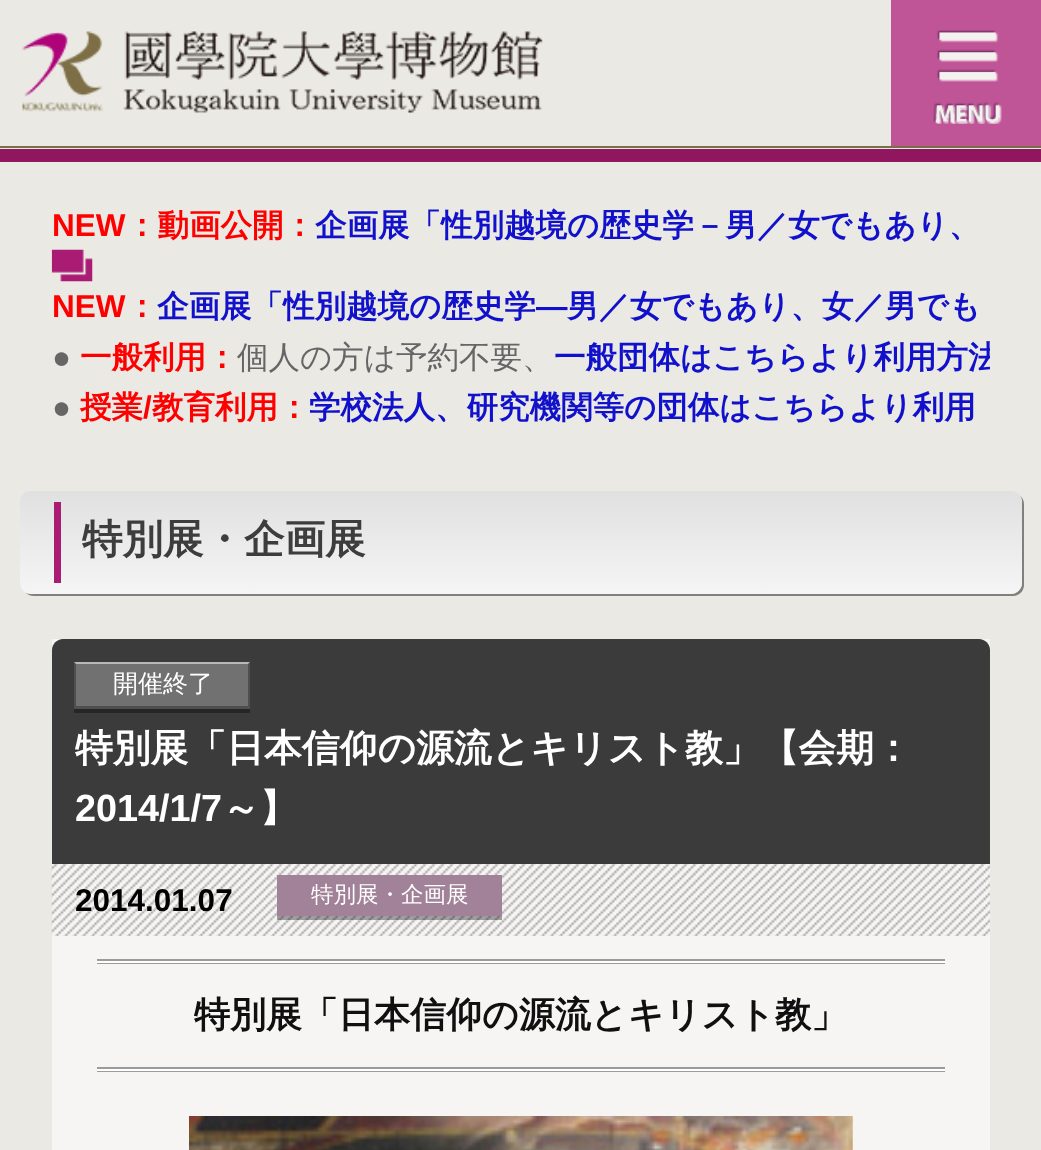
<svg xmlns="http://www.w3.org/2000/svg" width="1041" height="1150">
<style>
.a{font:bold 31.5px Liberation Sans;fill:#f00}
.b{font:bold 31.5px WenQuanYi Zen Hei;fill:#f00}
.c{font:bold 31.5px WenQuanYi Zen Hei;fill:#11c}
.d{font:bold 31.5px Liberation Sans;fill:#11c}
.e{font:31.5px Liberation Sans;fill:#666}
.f{font:500 31.5px WenQuanYi Zen Hei;fill:#666}
.g{font:bold 40.5px WenQuanYi Zen Hei;fill:#3d3d3d}
.h{font:500 25px WenQuanYi Zen Hei;fill:#fff}
.i{font:bold 37.8px WenQuanYi Zen Hei;fill:#fff}
.j{font:bold 37.8px Liberation Sans;fill:#fff}
.k{font:bold 31.5px Liberation Sans;fill:#000}
.l{font:500 22.5px WenQuanYi Zen Hei;fill:#fff}
.m{font:bold 36px WenQuanYi Zen Hei;fill:#101010}
</style>
<defs>
<linearGradient id="g1" gradientUnits="userSpaceOnUse" x1="521" y1="490" x2="521" y2="594"><stop offset="0" stop-color="#e0e0e0"/><stop offset="1" stop-color="#f5f5f5"/></linearGradient>
<clipPath id="clip1"><path d="M52 200h938v232H52z"/></clipPath>
</defs>
<rect width="100%" height="100%" fill="#eae9e4"/>
<path fill="#776f45" d="M0 146h1041v2H0z"/>
<image href="1.png" x="22" y="31" width="521" height="82"/>
<path fill="#bf5596" d="M891 0h150v146H891z"/>
<image href="2.png" x="933" y="30" width="69" height="94"/>
<path fill="#8f165f" d="M0 149h1041v13H0z"/>
<image href="3.png" x="51" y="249" width="42" height="33"/>
<path fill="#81807d" d="M26 593c2 2 5 3 8 3h979c6 0 11-5 11-11v-81c0-4-2-7-5-9c2 2 3 4 3 7v81c0 6-6 11-12 11h-978c-2 0-4-1-6-1z"/>
<rect fill="url(#g1)" x="20" y="491" width="1002" height="103" rx="11"/>
<path fill="#aa1c73" d="M54 502h7v81H54z"/>
<path fill="#f7f4f4" d="M52 639h938v511H52z"/>
<path fill="#3b3b3b" d="M63 639h916c6 0 11 5 11 11v214h-938v-214c0-6 5-11 11-11z"/>
<path fill="#262626" d="M74 666v47h176v-47v43h-176z"/>
<path fill="#727171" d="M74 662h176v47H74z"/>
<path fill="#b9b8b8" d="M74 662h176l-2 2h-172z"/>
<path fill="#0000004d" d="M250 662v47l-2-3v-42z"/>
<path fill="#0000004d" d="M250 709h-176l2-3h172z"/>
<path fill="#0000004d" d="M74 709v-47l2 2v42z"/>
<image href="4.png" x="51" y="864" width="939" height="72"/>
<path fill="#00000059" d="M277 916v4h225v-40v36z"/>
<path fill="#a18298" d="M277 875h225v41H277z"/>
<path fill="#9b9b9b" d="M97 959h848v5H97z"/>
<path fill="#fff" d="M97 961h848v2H97z"/>
<path fill="#9b9b9b" d="M97 1067h848v5H97z"/>
<path fill="#fff" d="M97 1069h848v2H97z"/>
<image href="5.png" x="189" y="1116" width="664" height="34"/>
<text class="a" x="52" y="236">NEW</text>
<text class="b" x="126" y="236">：動画公開：</text>
<text class="c" x="315" y="236">企画展「性別越境の歴史学－男／女でもあり、</text>
<text class="a" x="52" y="317">NEW</text>
<text class="b" x="126" y="317">：</text>
<text class="c" x="157" y="317">企画展「性別越境の歴史学</text>
<text class="d" x="536" y="317">―</text>
<text class="c" x="567" y="317">男／女でもあり、女／男でも</text>
<text class="e" x="52" y="368">●</text>
<text class="b" x="80" y="368">一般利用：</text>
<text class="f" x="237" y="368">個人の方は予約不要、</text>
<g clip-path="url(#clip1)">
<text class="c" x="554" y="368">一般団体はこちらより利用方法</text>
</g>
<text class="e" x="52" y="418">●</text>
<text class="b" x="80" y="418">授業</text>
<text class="a" x="143" y="418">/</text>
<text class="b" x="152" y="418">教育利用：</text>
<text class="c" x="309" y="418">学校法人、研究機関等の団体はこちらより利用</text>
<text class="g" x="82" y="553">特別展・企画展</text>
<text class="h" x="113" y="692">開催終了</text>
<text class="i" x="75" y="761">特別展「日本信仰の源流とキリスト教」【会期：</text>
<text class="j" x="75" y="821">2014/1/7</text>
<text class="i" x="222" y="821">～】</text>
<text class="k" x="75" y="911">2014.01.07</text>
<text class="l" x="311" y="902">特別展・企画展</text>
<text class="m" x="194" y="1027">特別展「日本信仰の源流とキリスト教」</text>
</svg>
